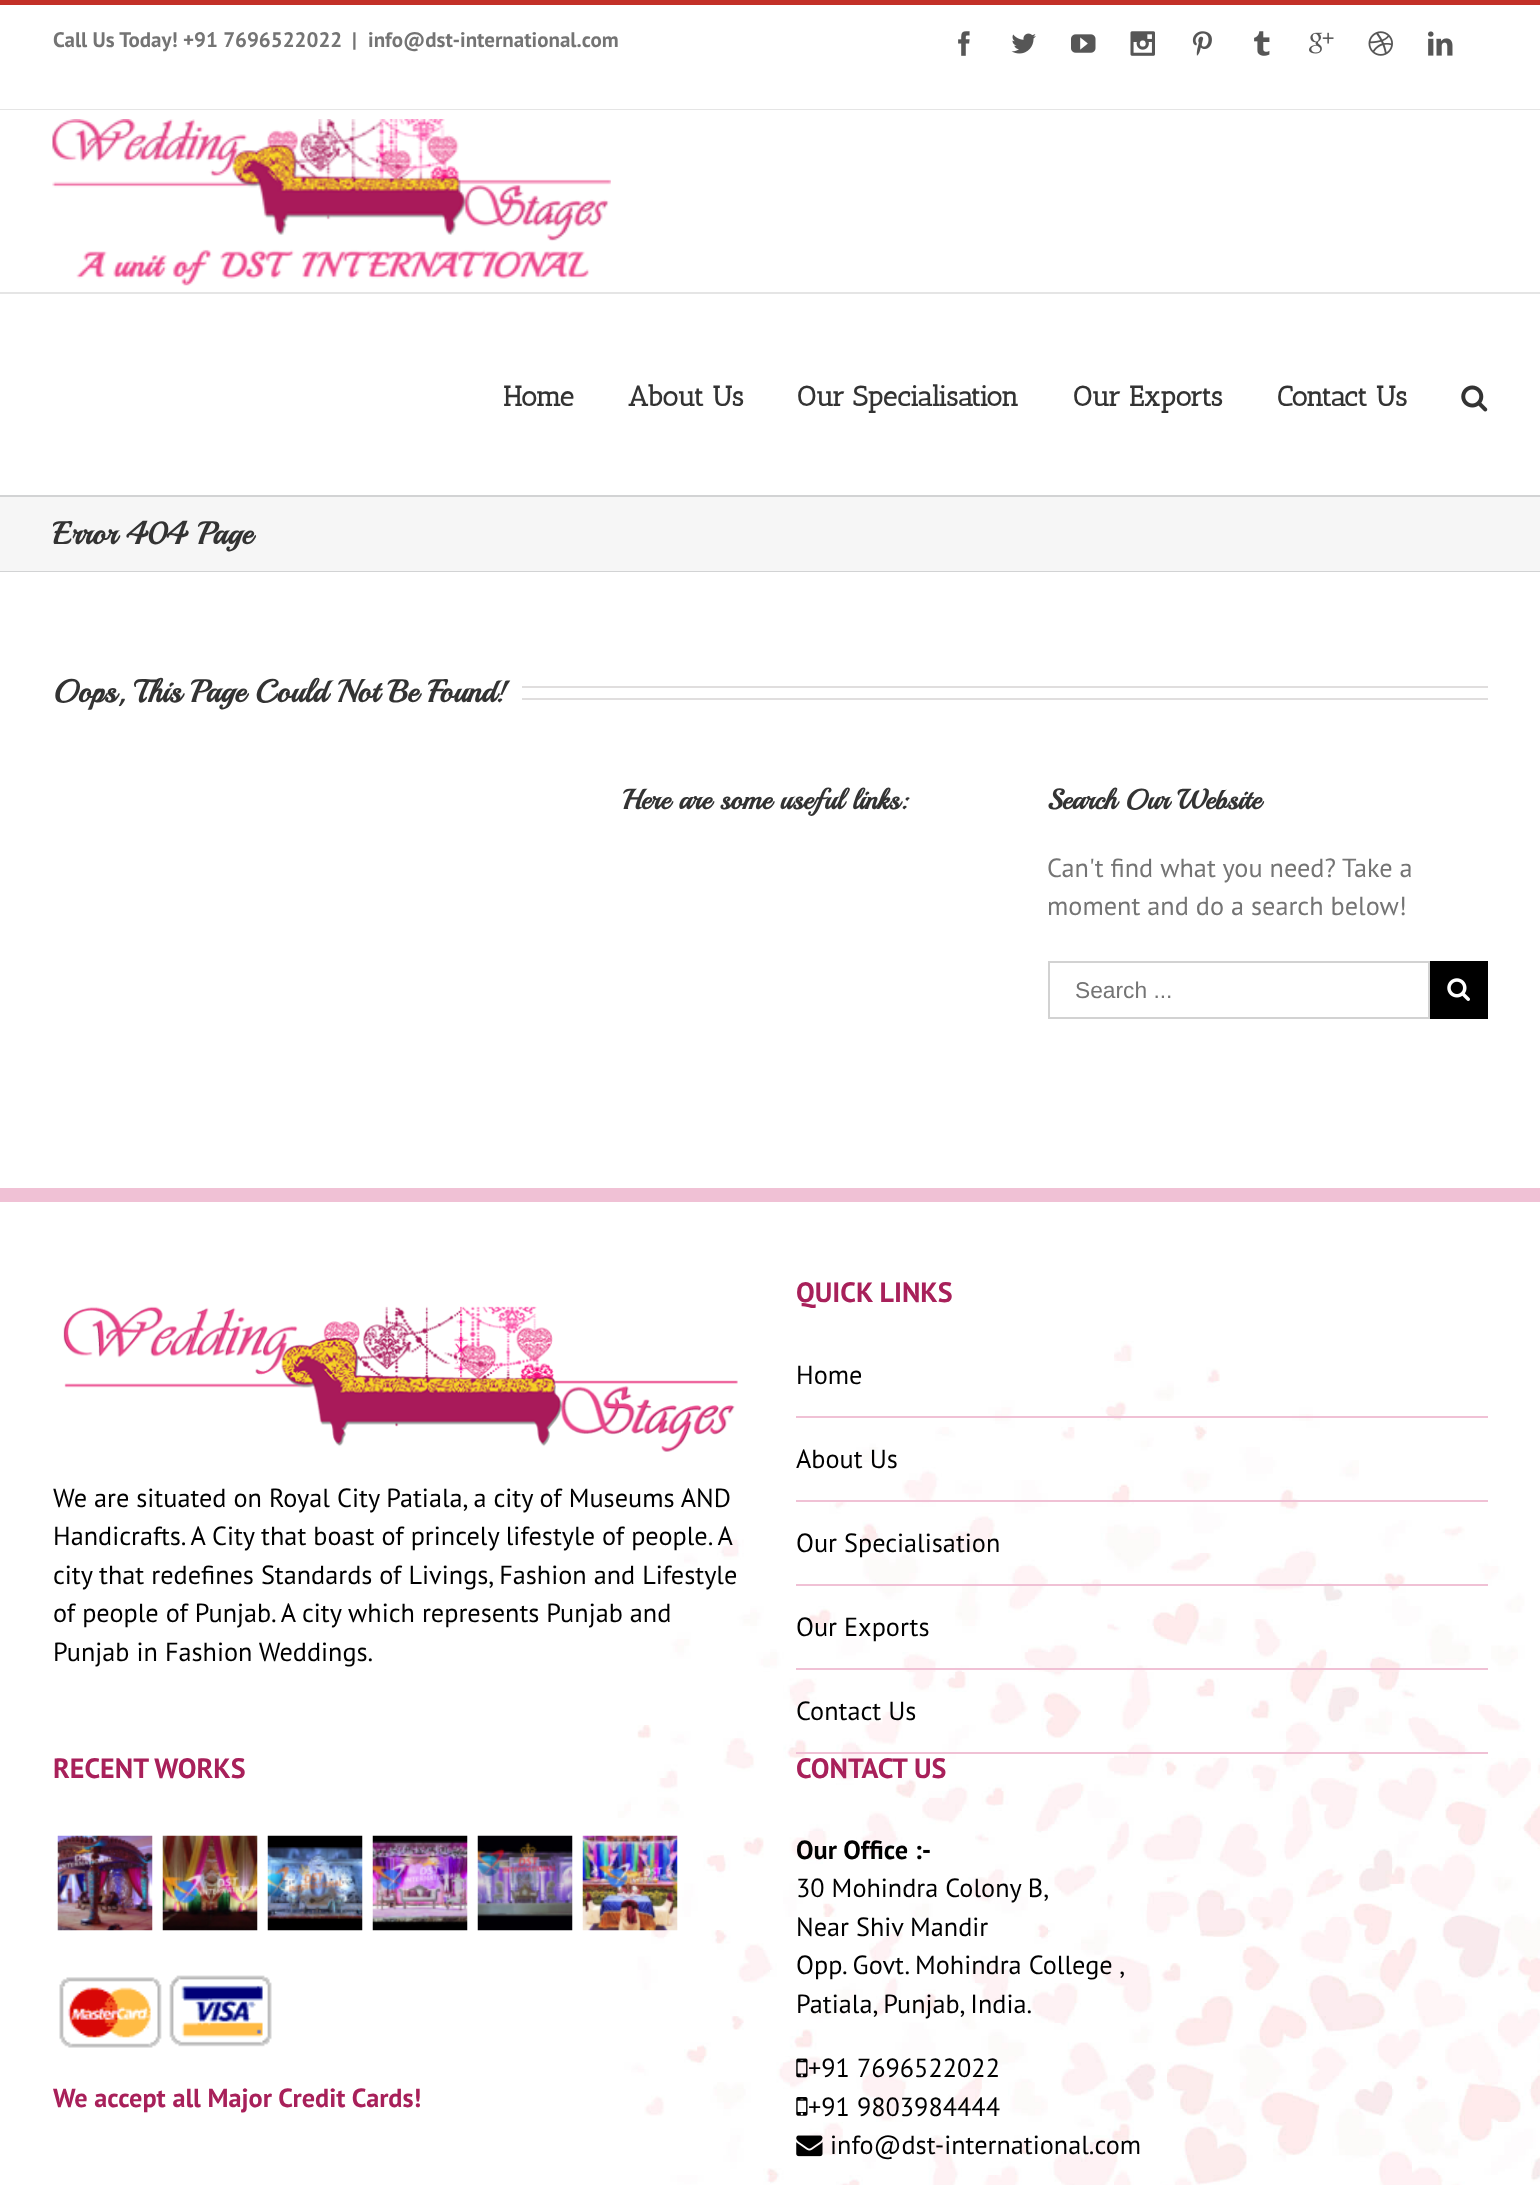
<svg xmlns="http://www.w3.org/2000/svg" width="1540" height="2185">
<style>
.a{font:bold 21px PT Sans;fill:#747474}
.b{font:bold 28px Antic Slab;fill:#333}
.c{font:bold 31.5px Playball;fill:#333}
.d{font:bold 28px Playball;fill:#333}
.e{font:26.25px PT Sans;fill:#747474}
.f{font:22.75px Liberation Sans;fill:#747474}
.g{font:26.25px PT Sans;fill:#000}
.h{font:bold 28px PT Sans;fill:#a8205a}
.i{font:bold 26.25px PT Sans;fill:#a8205a}
.j{font:bold 26.25px PT Sans;fill:#000}
</style>
<defs>
<clipPath id="clip1"><path d="M53 515h1435v38H53z"/></clipPath>
</defs>
<rect width="100%" height="100%" fill="#fff"/>
<path fill="#c33028" d="M0 0h1540v5H0z"/>
<path fill="#e5e5e5" d="M0 109h1540v1H0z"/>
<image href="1.png" x="958" y="31" width="12" height="25"/>
<image href="2.png" x="1011" y="33" width="25" height="21"/>
<image href="3.png" x="1071" y="34" width="25" height="19"/>
<image href="4.png" x="1130" y="31" width="25" height="25"/>
<image href="5.png" x="1192" y="31" width="20" height="25"/>
<image href="6.png" x="1254" y="31" width="16" height="25"/>
<image href="7.png" x="1309" y="32" width="25" height="22"/>
<image href="8.png" x="1368" y="31" width="25" height="25"/>
<image href="9.png" x="1428" y="31" width="25" height="25"/>
<path fill="#e5e5e5" d="M0 292h1540v2H0z"/>
<image href="10.png" x="52" y="119" width="559" height="167"/>
<image href="11.png" x="1461" y="385" width="27" height="27"/>
<path fill="#f6f6f6" d="M0 497h1540v74H0z"/>
<path fill="#d2d3d4" d="M0 495h1540v2H0z"/>
<path fill="#d2d3d4" d="M0 571h1540v1H0z"/>
<path fill="#e0dede" d="M522 686h966v2H522z"/>
<path fill="#e0dede" d="M522 698h966v2H522z"/>
<path fill="none" stroke="#d2d2d2" stroke-width="2" d="M1049 962h380v56H1049z"/>
<path fill="#000" d="M1430 961h58v58H1430z"/>
<image href="12.png" x="1447" y="978" width="23" height="23"/>
<image href="13.png" x="0" y="1202" width="1540" height="983"/>
<path fill="#f0c1d5" d="M0 1188h1540v14H0z"/>
<image href="14.png" x="63" y="1306" width="675" height="146"/>
<path fill="#f0c1d5" d="M796 1416h692v2H796z"/>
<path fill="#f0c1d5" d="M796 1500h692v2H796z"/>
<path fill="#f0c1d5" d="M796 1584h692v2H796z"/>
<path fill="#f0c1d5" d="M796 1668h692v2H796z"/>
<path fill="#f0c1d5" d="M796 1752h692v2H796z"/>
<image href="15.png" x="57" y="1835" width="96" height="96"/>
<image href="16.png" x="162" y="1835" width="96" height="96"/>
<image href="17.png" x="267" y="1835" width="96" height="96"/>
<image href="18.png" x="372" y="1835" width="96" height="96"/>
<image href="19.png" x="477" y="1835" width="96" height="96"/>
<image href="20.png" x="582" y="1835" width="96" height="96"/>
<image href="21.png" x="59" y="1975" width="213" height="73"/>
<image href="22.png" x="796" y="2058" width="12" height="20"/>
<image href="23.png" x="796" y="2097" width="12" height="19"/>
<image href="24.png" x="796" y="2135" width="27" height="22"/>
<text class="a" x="53" y="47">Call Us Today! +91 7696522022</text>
<text class="a" x="352" y="47">|</text>
<text class="a" x="368" y="47">info@dst-international.com</text>
<text class="b" x="503" y="406">Home</text>
<text class="b" x="628" y="406">About Us</text>
<text class="b" x="797" y="406">Our Specialisation</text>
<text class="b" x="1073" y="406">Our Exports</text>
<text class="b" x="1277" y="406">Contact Us</text>
<g clip-path="url(#clip1)">
<text class="c" x="53" y="544">Error 404 Page</text>
</g>
<text class="c" x="53" y="702">Oops, This Page Could Not Be Found!</text>
<text class="d" x="622" y="809">Here are some useful links:</text>
<text class="d" x="1047" y="809">Search Our Website</text>
<text class="e" x="1047" y="877">Can't find what you need? Take a</text>
<text class="e" x="1047" y="915">moment and do a search below!</text>
<text class="f" x="1075" y="998">Search ...</text>
<text class="g" x="53" y="1507">We are situated on Royal City Patiala, a city of Museums AND</text>
<text class="g" x="53" y="1545">Handicrafts. A City that boast of princely lifestyle of people. A</text>
<text class="g" x="53" y="1584">city that redefines Standards of Livings, Fashion and Lifestyle</text>
<text class="g" x="53" y="1622">of people of Punjab. A city which represents Punjab and</text>
<text class="g" x="53" y="1661">Punjab in Fashion Weddings.</text>
<text class="h" x="796" y="1302">QUICK LINKS</text>
<text class="g" x="796" y="1384">Home</text>
<text class="g" x="796" y="1468">About Us</text>
<text class="g" x="796" y="1552">Our Specialisation</text>
<text class="g" x="796" y="1636">Our Exports</text>
<text class="g" x="796" y="1720">Contact Us</text>
<text class="h" x="53" y="1778">RECENT WORKS</text>
<text class="i" x="53" y="2107">We accept all Major Credit Cards!</text>
<text class="h" x="796" y="1778">CONTACT US</text>
<text class="j" x="796" y="1859">Our Office :-</text>
<text class="g" x="796" y="1897">30 Mohindra Colony B,</text>
<text class="g" x="796" y="1936">Near Shiv Mandir</text>
<text class="g" x="796" y="1974">Opp. Govt. Mohindra College ,</text>
<text class="g" x="796" y="2013">Patiala, Punjab, India.</text>
<text class="g" x="808" y="2077">+91 7696522022</text>
<text class="g" x="808" y="2116">+91 9803984444</text>
<text class="g" x="830" y="2154">info@dst-international.com</text>
</svg>
